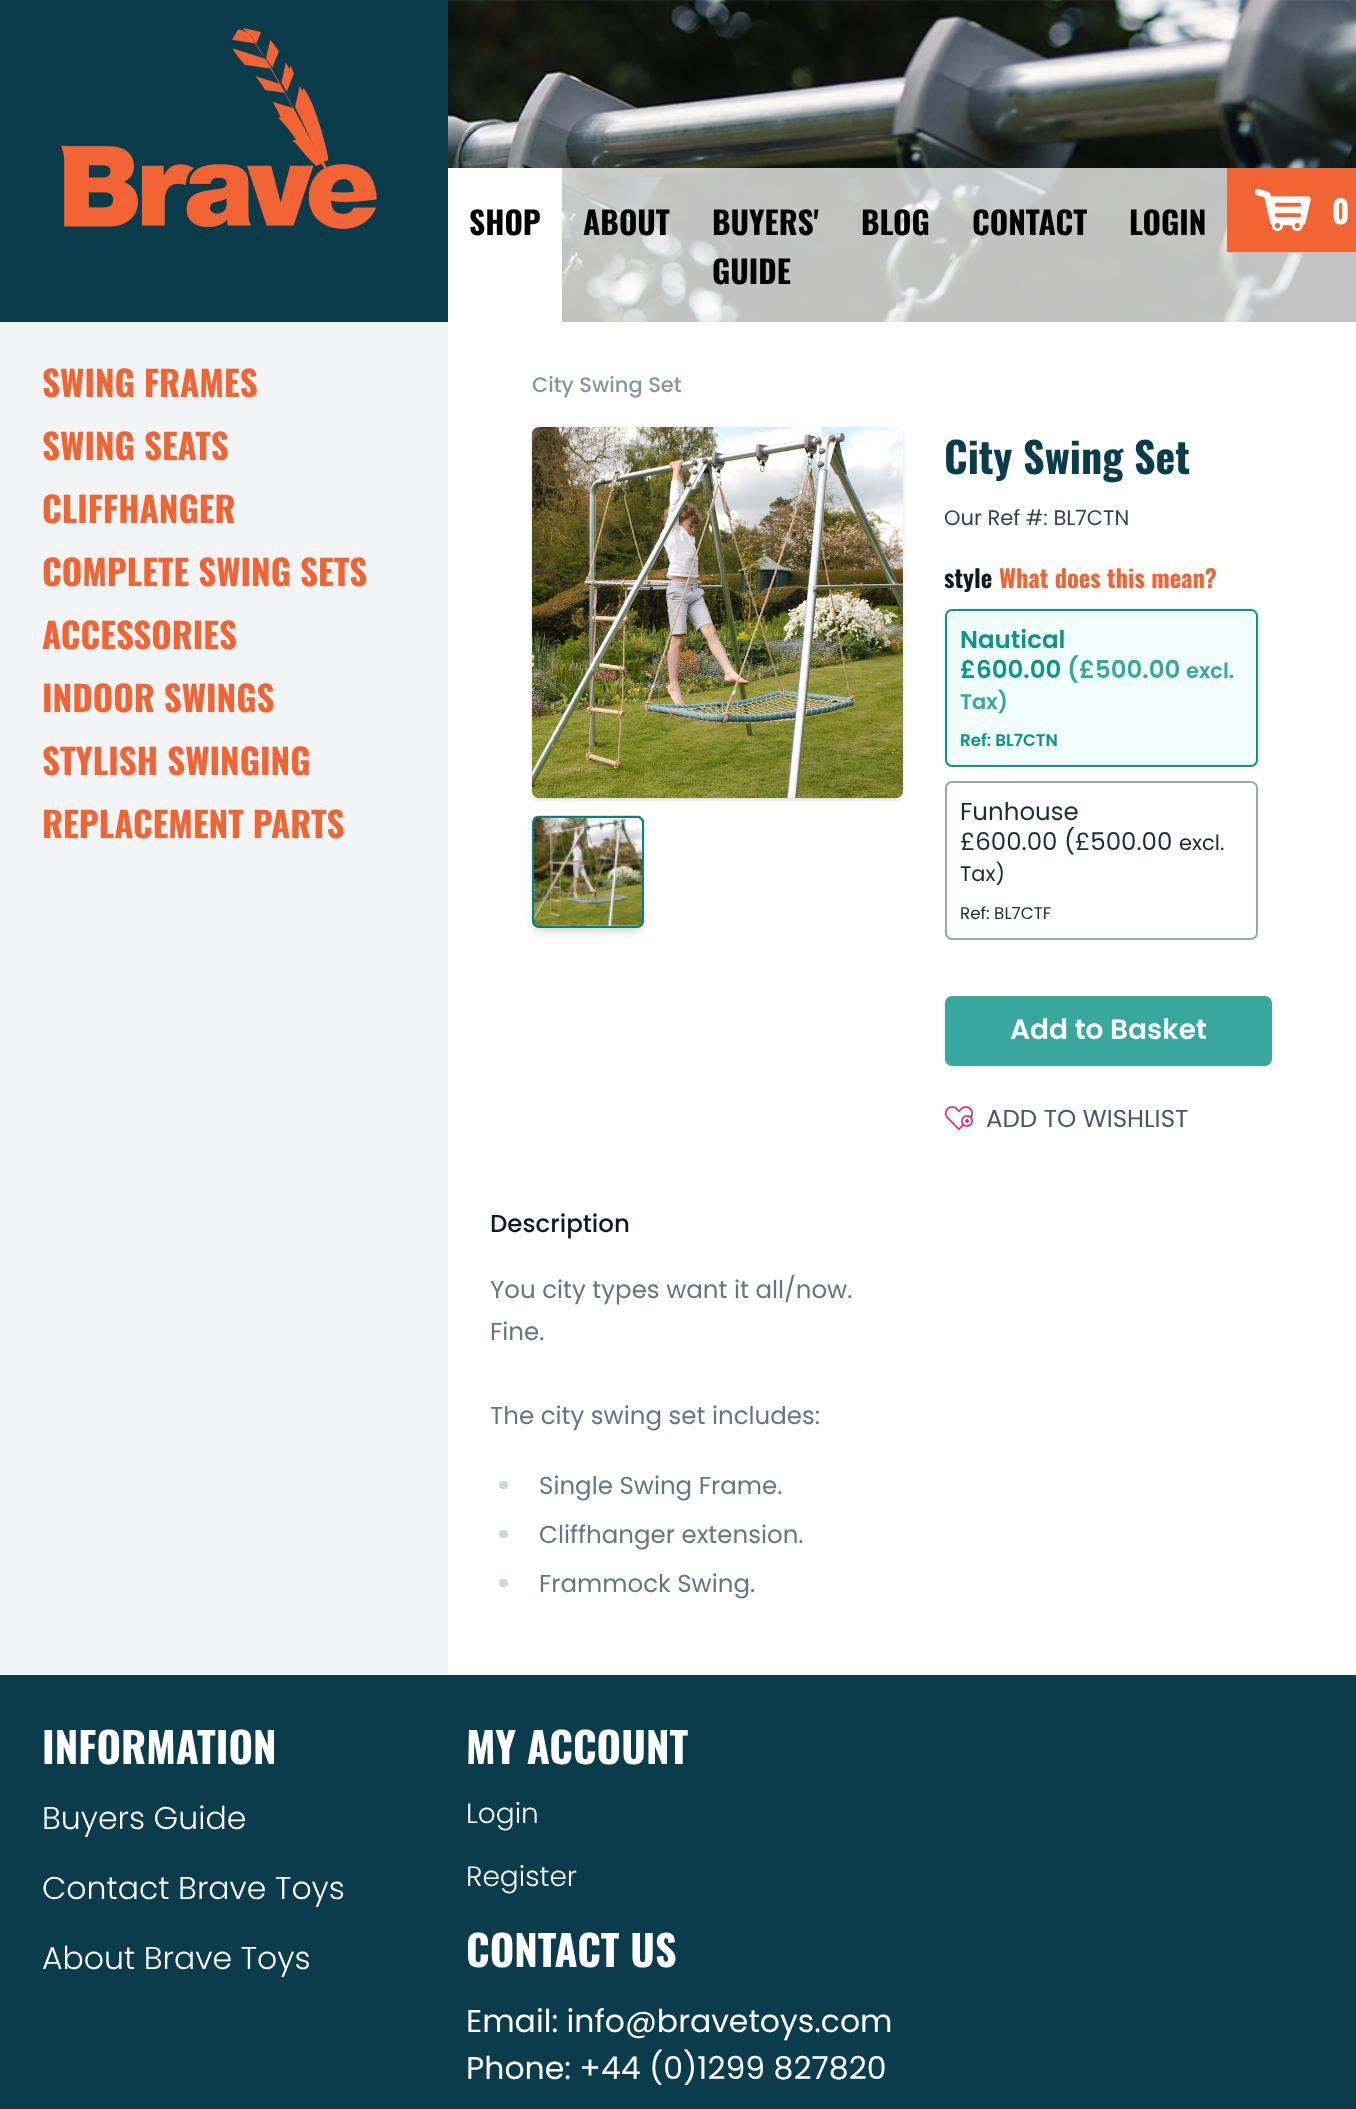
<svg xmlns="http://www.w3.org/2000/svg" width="1356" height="2109">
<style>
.a{font:bold 31.5px Oswald;fill:#000}
.b{font:bold 31.5px Oswald;fill:#fff}
.c{font:bold 35px Oswald;fill:#f26434}
.d{font:500 21px Poppins;fill:#8795a1}
.e{font:bold 42px Oswald;fill:#0b3c4b}
.f{font:21px Poppins;fill:#374151}
.g{font:bold 24.5px Oswald;fill:#111827}
.h{font:bold 24.5px Oswald;fill:#f26434}
.i{font:600 24.5px Poppins;fill:#0d9488}
.j{font:600 24.5px Poppins;fill:#38a89d}
.k{font:600 21px Poppins;fill:#38a89d}
.l{font:600 16.75px Poppins;fill:#0d9488}
.m{font:24.5px Poppins;fill:#1f2937}
.n{font:21px Poppins;fill:#1f2937}
.o{font:16.75px Poppins;fill:#1f2937}
.p{font:600 28px Poppins;fill:#fff}
.q{font:24.5px Poppins;fill:#4b5563}
.r{font:500 24.5px Poppins;fill:#111827}
.s{font:24.5px Poppins;fill:#6b7280}
.t{font:bold 42px Oswald;fill:#fff}
.u{font:300 31.5px Poppins;fill:#fff}
.v{font:300 28px Poppins;fill:#fff}
.w{font:31.5px Poppins;fill:#fff}
</style>
<rect width="100%" height="100%" fill="#fff"/>
<image href="1.png" x="448" y="0" width="908" height="322"/>
<path fill="#0b3c4b" d="M0 0h448v322H0z"/>
<image href="2.png" x="61" y="28" width="316" height="201"/>
<path fill="#ffffffbf" d="M562 168h794v154H562z"/>
<path fill="#fff" d="M448 168h114v154H448z"/>
<path fill="#f26434" d="M1227 168h129v84H1227z"/>
<image href="3.png" x="1255" y="188" width="56" height="44"/>
<path fill="#f3f4f6" d="M0 322h448v1353H0z"/>
<rect fill="#0000001a" filter="blur(2px)" x="534" y="431" width="367" height="367" rx="5"/>
<rect fill="#0000001a" filter="blur(2.5px)" x="532" y="429" width="371" height="371" rx="7"/>
<image href="4.png" x="532" y="427" width="371" height="371"/>
<rect fill="#0000001a" filter="blur(3.5px)" x="536" y="823" width="105" height="105" rx="4"/>
<rect fill="#0000001a" filter="blur(5px)" x="534" y="824" width="108" height="109" rx="5"/>
<image href="5.png" x="532" y="815" width="112" height="113"/>
<rect fill="none" stroke="#008080" stroke-width="2" x="533" y="817" width="110" height="110" rx="6"/>
<rect fill="#f0fdfa" stroke="#0d9488" stroke-width="2" x="946" y="610" width="311" height="156" rx="6"/>
<rect fill="none" stroke="#9ca3af" stroke-width="2" x="946" y="782" width="311" height="157" rx="6"/>
<rect fill="#38a89d" x="945" y="996" width="327" height="70" rx="7"/>
<image href="6.png" x="945" y="1106" width="28" height="25"/>
<rect fill="#d1d5db" x="499" y="1481" width="9" height="8" rx="4"/>
<rect fill="#d1d5db" x="499" y="1530" width="9" height="8" rx="4"/>
<rect fill="#d1d5db" x="499" y="1579" width="9" height="8" rx="4"/>
<path fill="#0b3c4b" d="M0 1675h1356v434H0z"/>
<text class="a" x="469" y="235">SHOP</text>
<text class="a" x="583" y="235">ABOUT</text>
<text class="a" x="712" y="235">BUYERS'</text>
<text class="a" x="712" y="284">GUIDE</text>
<text class="a" x="861" y="235">BLOG</text>
<text class="a" x="972" y="235">CONTACT</text>
<text class="a" x="1129" y="235">LOGIN</text>
<text class="b" x="1332" y="224">0</text>
<text class="c" x="42" y="397">SWING FRAMES</text>
<text class="c" x="42" y="460">SWING SEATS</text>
<text class="c" x="42" y="523">CLIFFHANGER</text>
<text class="c" x="42" y="586">COMPLETE SWING SETS</text>
<text class="c" x="42" y="649">ACCESSORIES</text>
<text class="c" x="42" y="712">INDOOR SWINGS</text>
<text class="c" x="42" y="775">STYLISH SWINGING</text>
<text class="c" x="42" y="838">REPLACEMENT PARTS</text>
<text class="d" x="532" y="392">City Swing Set</text>
<text class="e" x="944" y="474">City Swing Set</text>
<text class="f" x="944" y="525">Our Ref #: BL7CTN</text>
<text class="g" x="944" y="588">style</text>
<text class="h" x="999" y="588">What does this mean?</text>
<text class="i" x="960" y="648">Nautical</text>
<text class="i" x="960" y="678">£600.00</text>
<text class="j" x="1067" y="678">(£500.00</text>
<text class="k" x="1186" y="678">excl.</text>
<text class="k" x="960" y="709">Tax)</text>
<text class="l" x="960" y="746">Ref: BL7CTN</text>
<text class="m" x="960" y="820">Funhouse</text>
<text class="m" x="960" y="850">£600.00 (£500.00</text>
<text class="n" x="1179" y="850">excl.</text>
<text class="n" x="960" y="881">Tax)</text>
<text class="o" x="960" y="919">Ref: BL7CTF</text>
<text class="p" x="1010" y="1039">Add to Basket</text>
<text class="q" x="986" y="1127">ADD TO WISHLIST</text>
<text class="r" x="490" y="1232">Description</text>
<text class="s" x="490" y="1298">You city types want it all/now.</text>
<text class="s" x="490" y="1340">Fine.</text>
<text class="s" x="490" y="1424">The city swing set includes:</text>
<text class="s" x="539" y="1494">Single Swing Frame.</text>
<text class="s" x="539" y="1543">Cliffhanger extension.</text>
<text class="s" x="539" y="1592">Frammock Swing.</text>
<text class="t" x="42" y="1764">INFORMATION</text>
<text class="u" x="42" y="1829">Buyers Guide</text>
<text class="u" x="42" y="1899">Contact Brave Toys</text>
<text class="u" x="42" y="1969">About Brave Toys</text>
<text class="t" x="466" y="1764">MY ACCOUNT</text>
<text class="v" x="466" y="1823">Login</text>
<text class="v" x="466" y="1886">Register</text>
<text class="t" x="466" y="1967">CONTACT US</text>
<text class="w" x="466" y="2032">Email: info@bravetoys.com</text>
<text class="w" x="466" y="2079">Phone: +44 (0)1299 827820</text>
</svg>
